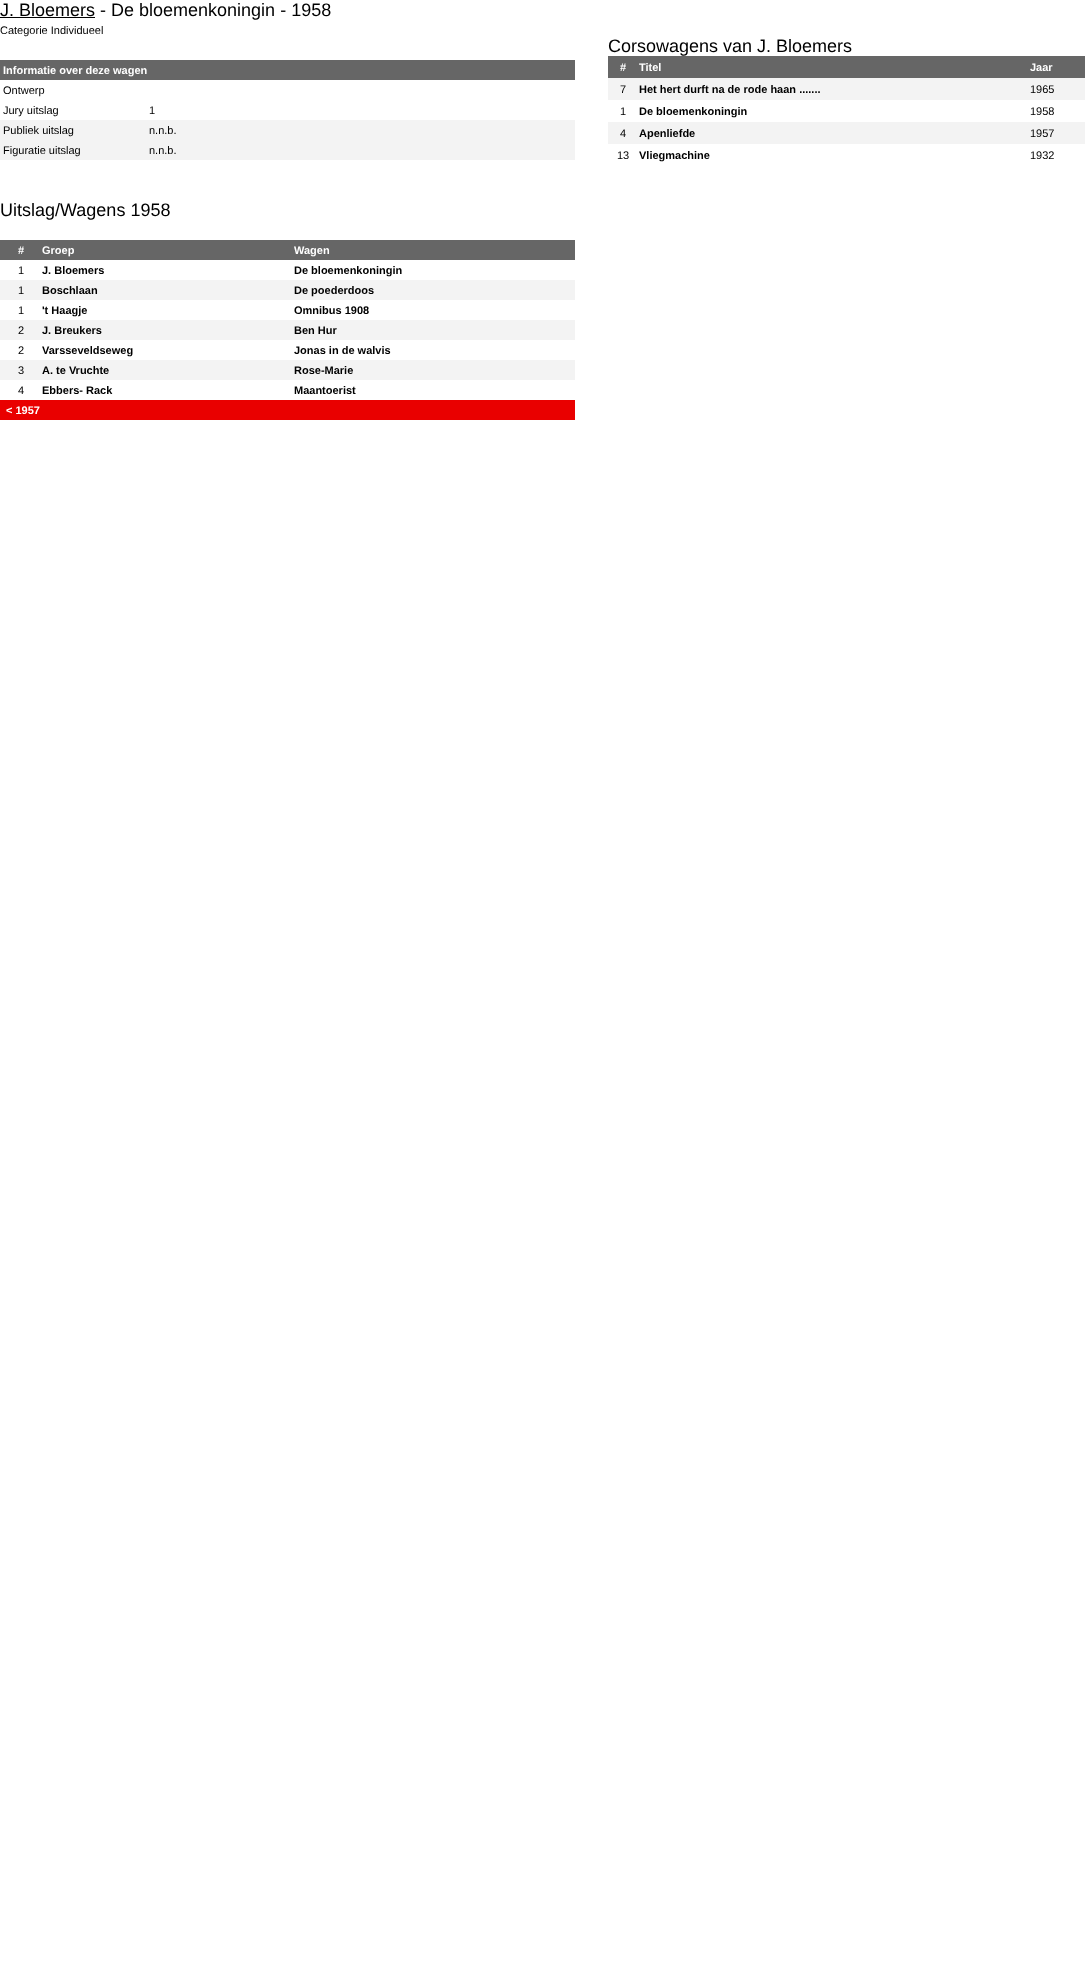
<svg xmlns="http://www.w3.org/2000/svg" width="1085" height="1974">
<style>
.a{font:18px Liberation Sans;fill:#000}
.b{font:11px Liberation Sans;fill:#000}
.c{font:bold 11px Liberation Sans;fill:#fff}
.d{font:bold 11px Liberation Sans;fill:#000}
</style>
<rect width="100%" height="100%" fill="#fff"/>
<path fill="#000" d="M0 17h95v1H0z"/>
<path fill="#666" d="M0 60h575v20H0z"/>
<path fill="#f3f3f3" d="M0 120h575v20H0z"/>
<path fill="#f3f3f3" d="M0 140h575v20H0z"/>
<path fill="#666" d="M0 240h575v20H0z"/>
<path fill="#f3f3f3" d="M0 280h575v20H0z"/>
<path fill="#f3f3f3" d="M0 320h575v20H0z"/>
<path fill="#f3f3f3" d="M0 360h575v20H0z"/>
<path fill="#e90000" d="M0 400h575v20H0z"/>
<path fill="#666" d="M608 56h477v22H608z"/>
<path fill="#f3f3f3" d="M608 78h477v22H608z"/>
<path fill="#f3f3f3" d="M608 122h477v22H608z"/>
<text class="a" x="0" y="16">J. Bloemers - De bloemenkoningin - 1958</text>
<text class="b" x="0" y="34">Categorie Individueel</text>
<text class="c" x="3" y="74">Informatie over deze wagen</text>
<text class="b" x="3" y="94">Ontwerp</text>
<text class="b" x="3" y="114">Jury uitslag</text>
<text class="b" x="149" y="114">1</text>
<text class="b" x="3" y="134">Publiek uitslag</text>
<text class="b" x="149" y="134">n.n.b.</text>
<text class="b" x="3" y="154">Figuratie uitslag</text>
<text class="b" x="149" y="154">n.n.b.</text>
<text class="a" x="0" y="216">Uitslag/Wagens 1958</text>
<text class="c" x="18" y="254">#</text>
<text class="c" x="42" y="254">Groep</text>
<text class="c" x="294" y="254">Wagen</text>
<text class="b" x="18" y="274">1</text>
<text class="d" x="42" y="274">J. Bloemers</text>
<text class="d" x="294" y="274">De bloemenkoningin</text>
<text class="b" x="18" y="294">1</text>
<text class="d" x="42" y="294">Boschlaan</text>
<text class="d" x="294" y="294">De poederdoos</text>
<text class="b" x="18" y="314">1</text>
<text class="d" x="42" y="314">'t Haagje</text>
<text class="d" x="294" y="314">Omnibus 1908</text>
<text class="b" x="18" y="334">2</text>
<text class="d" x="42" y="334">J. Breukers</text>
<text class="d" x="294" y="334">Ben Hur</text>
<text class="b" x="18" y="354">2</text>
<text class="d" x="42" y="354">Varsseveldseweg</text>
<text class="d" x="294" y="354">Jonas in de walvis</text>
<text class="b" x="18" y="374">3</text>
<text class="d" x="42" y="374">A. te Vruchte</text>
<text class="d" x="294" y="374">Rose-Marie</text>
<text class="b" x="18" y="394">4</text>
<text class="d" x="42" y="394">Ebbers- Rack</text>
<text class="d" x="294" y="394">Maantoerist</text>
<text class="c" x="6" y="414">&lt; 1957</text>
<text class="a" x="608" y="52">Corsowagens van J. Bloemers</text>
<text class="c" x="620" y="71">#</text>
<text class="c" x="639" y="71">Titel</text>
<text class="c" x="1030" y="71">Jaar</text>
<text class="b" x="620" y="93">7</text>
<text class="d" x="639" y="93">Het hert durft na de rode haan .......</text>
<text class="b" x="1030" y="93">1965</text>
<text class="b" x="620" y="115">1</text>
<text class="d" x="639" y="115">De bloemenkoningin</text>
<text class="b" x="1030" y="115">1958</text>
<text class="b" x="620" y="137">4</text>
<text class="d" x="639" y="137">Apenliefde</text>
<text class="b" x="1030" y="137">1957</text>
<text class="b" x="617" y="159">13</text>
<text class="d" x="639" y="159">Vliegmachine</text>
<text class="b" x="1030" y="159">1932</text>
</svg>
